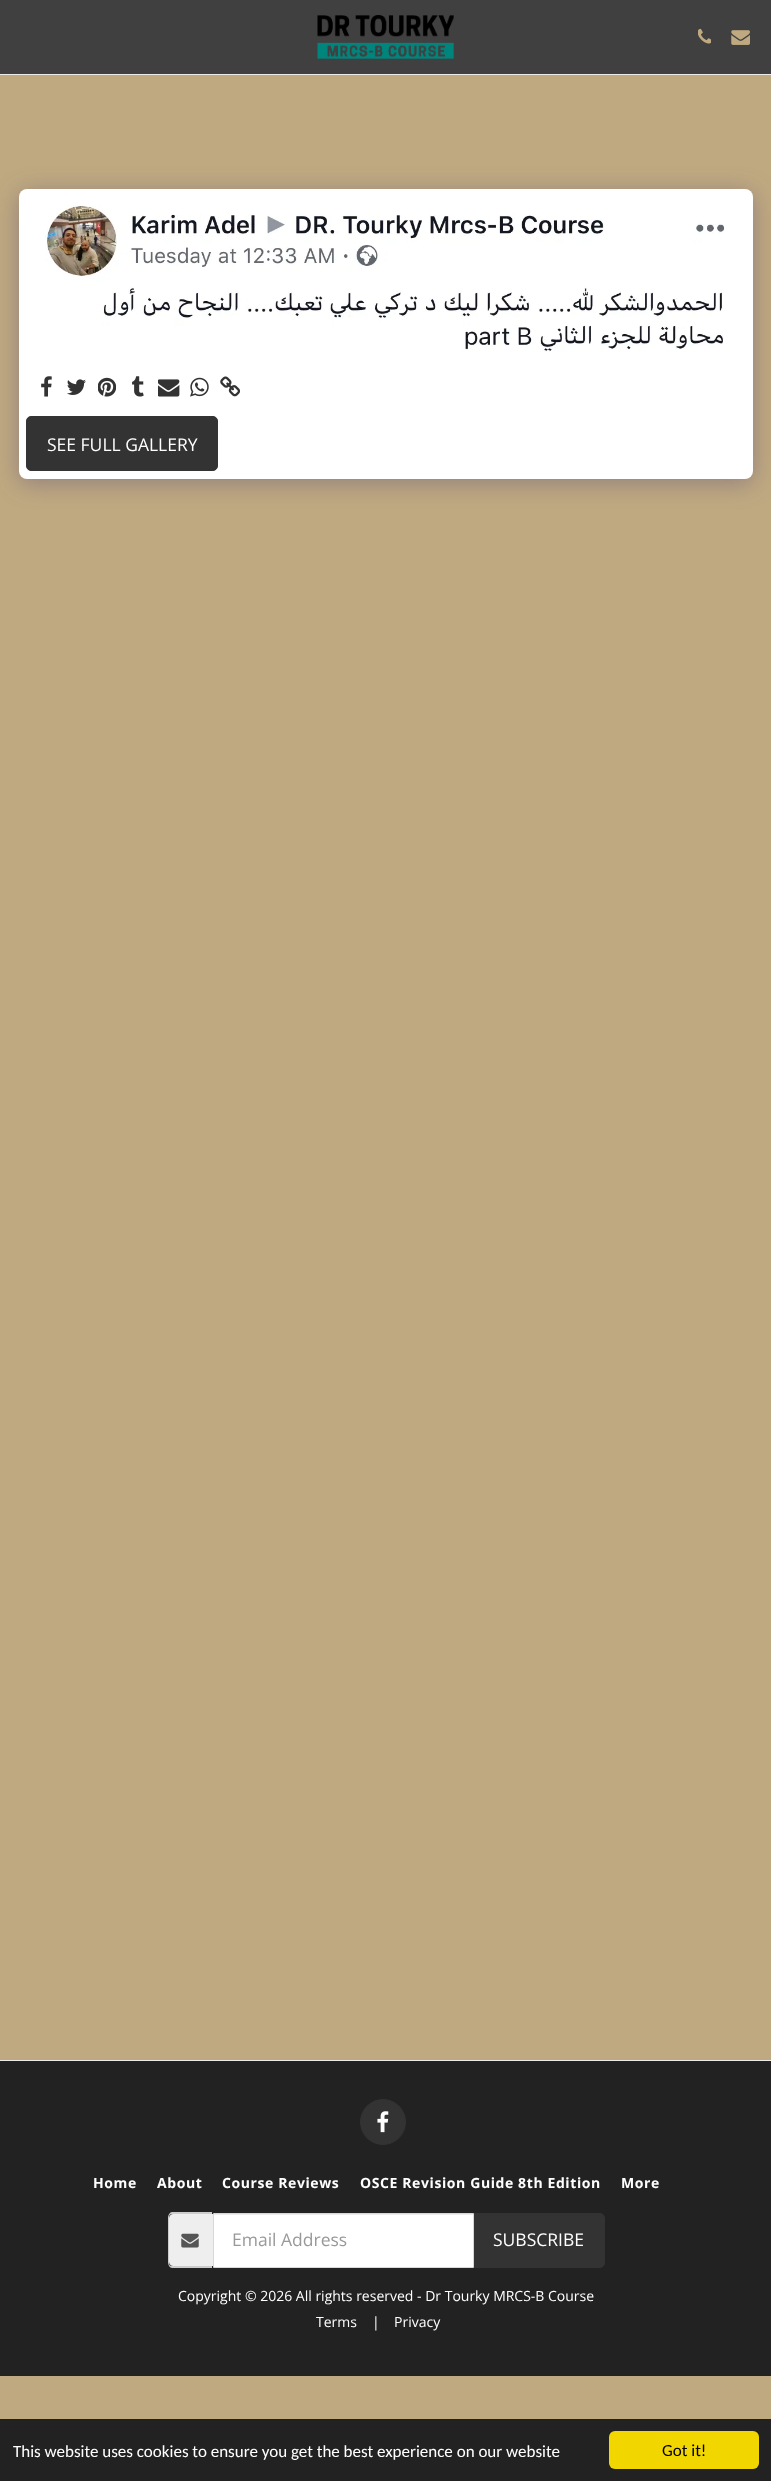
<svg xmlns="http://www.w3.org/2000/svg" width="771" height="2481">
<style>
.a{font:17.5px Open Sans;fill:#fff}
.b{font:bold 14px Open Sans;letter-spacing:0.6px;fill:#fff}
.c{font:17.5px Open Sans;fill:#999}
.d{font:14px Open Sans;fill:#fff}
.e{font:17px Carlito;fill:#fff}
.f{font:17px Carlito;fill:#000}
</style>
<rect width="100%" height="100%" fill="#bfa980"/>
<path fill="#404040" d="M0 0h771v74H0z"/>
<path fill="#ebebeb" d="M0 74h771v1H0z"/>
<image href="1.png" x="317" y="15" width="137" height="44"/>
<image href="2.png" x="698" y="28" width="13" height="16"/>
<image href="3.png" x="731" y="30" width="19" height="15"/>
<rect fill="#4d3f7a66" filter="blur(12.5px)" x="19" y="193" width="734" height="290" rx="8"/>
<rect fill="#fff" x="19" y="189" width="734" height="290" rx="8"/>
<image href="4.png" x="45" y="205" width="680" height="147"/>
<image href="5.png" x="41" y="376" width="11" height="21"/>
<image href="6.png" x="67" y="379" width="19" height="16"/>
<image href="7.png" x="98" y="377" width="18" height="20"/>
<image href="8.png" x="132" y="376" width="12" height="21"/>
<image href="9.png" x="158" y="379" width="22" height="18"/>
<image href="10.png" x="190" y="377" width="19" height="20"/>
<image href="11.png" x="220" y="376" width="20" height="21"/>
<rect fill="#333" stroke="#333" x="26.5" y="416.5" width="191" height="54" rx="4.5"/>
<path fill="#ebebeb" d="M0 2060h771v1H0z"/>
<path fill="#222" d="M0 2061h771v315H0z"/>
<circle fill="#333" stroke="#333" cx="383" cy="2122" r="22.5"/>
<image href="12.png" x="377" y="2111" width="12" height="22"/>
<path fill="#eee" d="M173 2214h40v52h-40c-2 0-4-2-4-4v-44c0-2 2-4 4-4z"/>
<path fill="#ccc" fill-rule="evenodd" d="M172 2212h40v56h-40c-2 0-4-3-4-6v-44c0-3 2-6 4-6zm0 2h40v52h-40c-2 0-3-1-3-4v-44c0-3 1-4 3-4z"/>
<image href="13.png" x="181" y="2233" width="18" height="15"/>
<path fill="#fff" d="M214 2215h259v52H214z"/>
<path fill="#ececec" d="M214 2214h259v1H214z"/>
<path fill="#333" stroke="#333" d="M473.5 2213.5h126.5c2.5 0 4.5 2 4.5 4.5v45c0 2.5-2 4.5-4.5 4.5h-126.5z"/>
<path fill="none" stroke="#d4d7e5" d="M213.5 2213.5h260v54H213.5z"/>
<path fill="#222" d="M0 2419h771v62H0z"/>
<rect fill="#f1d600" x="609" y="2431" width="150" height="38" rx="6"/>
<text class="a" x="47" y="451">SEE FULL GALLERY</text>
<text class="b" x="93" y="2188">Home</text>
<text class="b" x="157" y="2188">About</text>
<text class="b" x="222" y="2188">Course Reviews</text>
<text class="b" x="360" y="2188">OSCE Revision Guide 8th Edition</text>
<text class="b" x="621" y="2188">More</text>
<text class="c" x="232" y="2246">Email Address</text>
<text class="a" x="493" y="2246">SUBSCRIBE</text>
<text class="d" x="178" y="2301">Copyright © 2026 All rights reserved - Dr Tourky MRCS-B Course</text>
<text class="d" x="316" y="2327">Terms</text>
<text class="d" x="372" y="2327">|</text>
<text class="d" x="394" y="2327">Privacy</text>
<text class="e" x="13" y="2457">This website uses cookies to ensure you get the best experience on our website</text>
<text class="f" x="662" y="2456">Got it!</text>
</svg>
